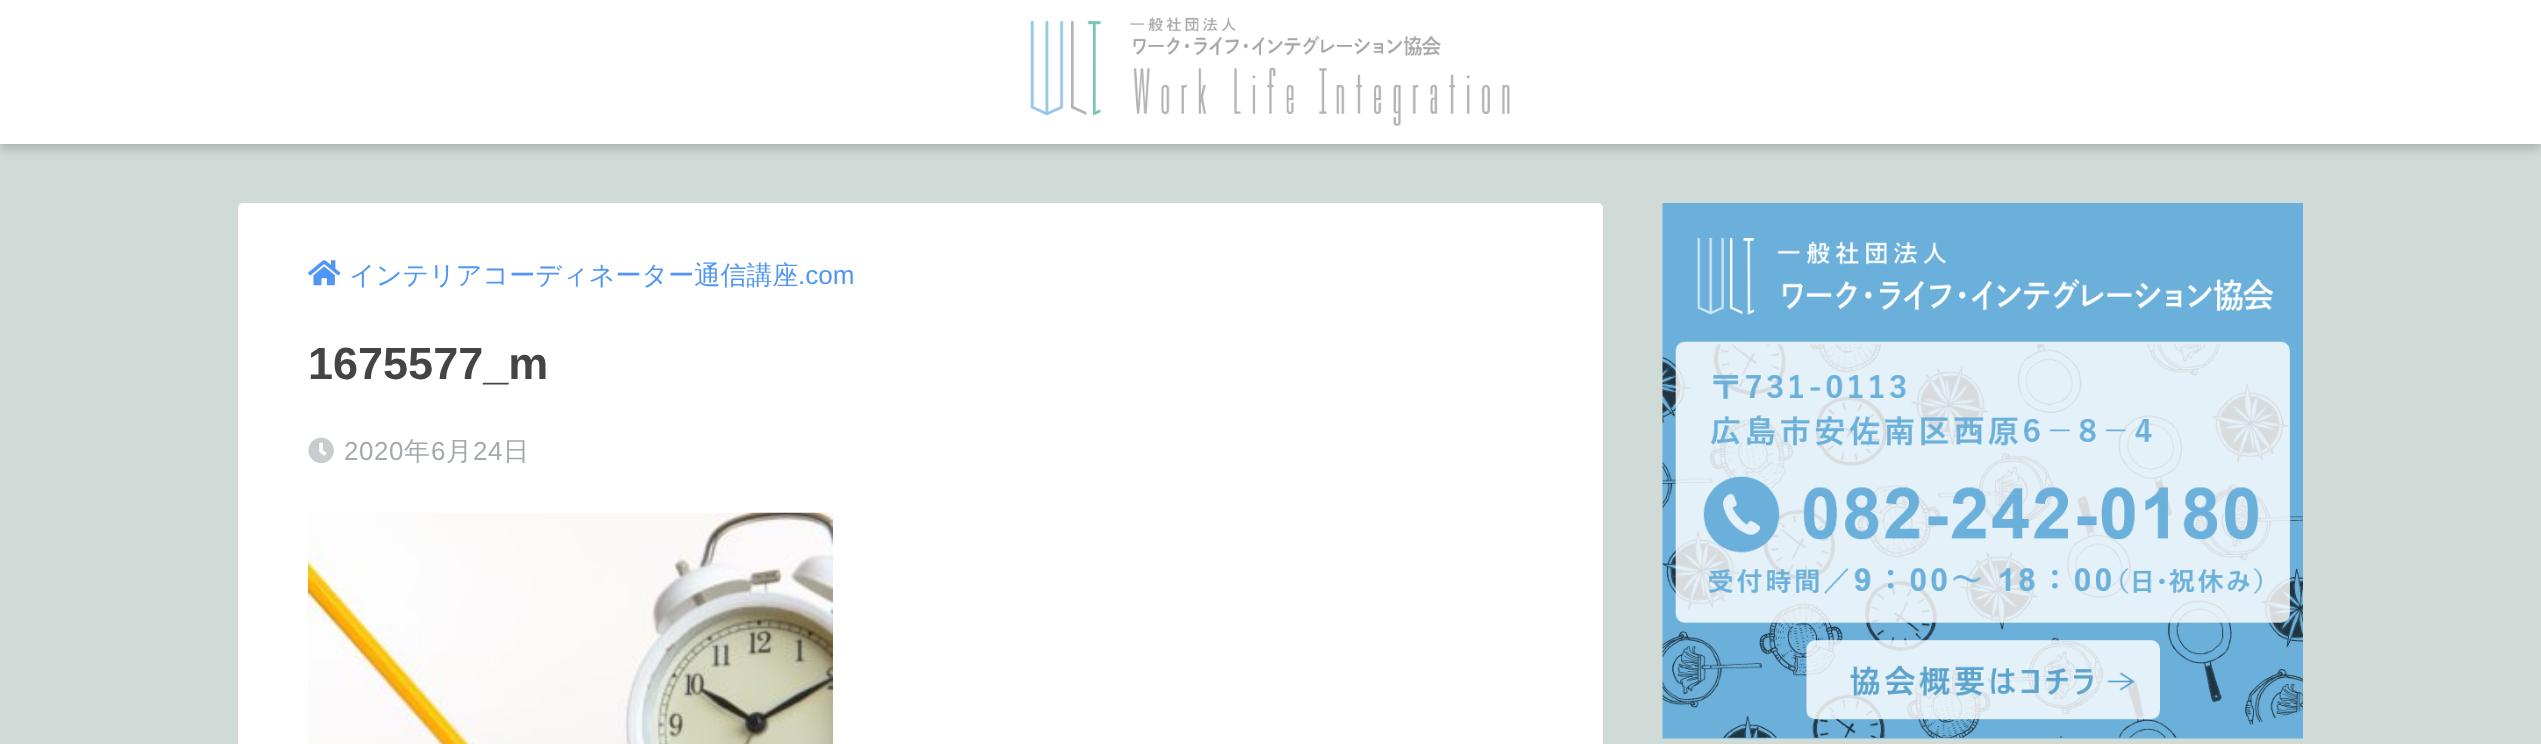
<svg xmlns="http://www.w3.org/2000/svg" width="2541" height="744">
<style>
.a{font:500 26.1px WenQuanYi Zen Hei;fill:#4f96f6}
.b{font:26.1px Liberation Sans;fill:#4f96f6}
.c{font:bold 45px Liberation Sans;fill:#444}
.d{font:26px Liberation Sans;letter-spacing:0.5px;fill:#a5aaaf}
.e{font:500 26px WenQuanYi Zen Hei;letter-spacing:0.5px;fill:#a5aaaf}
</style>
<rect width="100%" height="100%" fill="#d0dbd8"/>
<path fill="#0000002e" filter="blur(5px)" d="M0 5h2541v144H0z"/>
<path fill="#fff" d="M0 0h2541v144H0z"/>
<image href="1.png" x="1030" y="17" width="480" height="109"/>
<rect fill="#fff" x="238" y="203" width="1365" height="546" rx="5"/>
<image href="2.png" x="308" y="260" width="33" height="26"/>
<image href="3.png" x="308" y="437" width="26" height="27"/>
<image href="4.png" x="308" y="512" width="525" height="232"/>
<image href="5.png" x="1662" y="203" width="641" height="536"/>
<text class="a" x="349" y="284">インテリアコーディネーター通信講座</text>
<text class="b" x="798" y="284">.com</text>
<text class="c" x="308" y="379">1675577_m</text>
<text class="d" x="344" y="460">2020</text>
<text class="e" x="404" y="460">年</text>
<text class="d" x="431" y="460">6</text>
<text class="e" x="446" y="460">月</text>
<text class="d" x="473" y="460">24</text>
<text class="e" x="503" y="460">日</text>
</svg>
